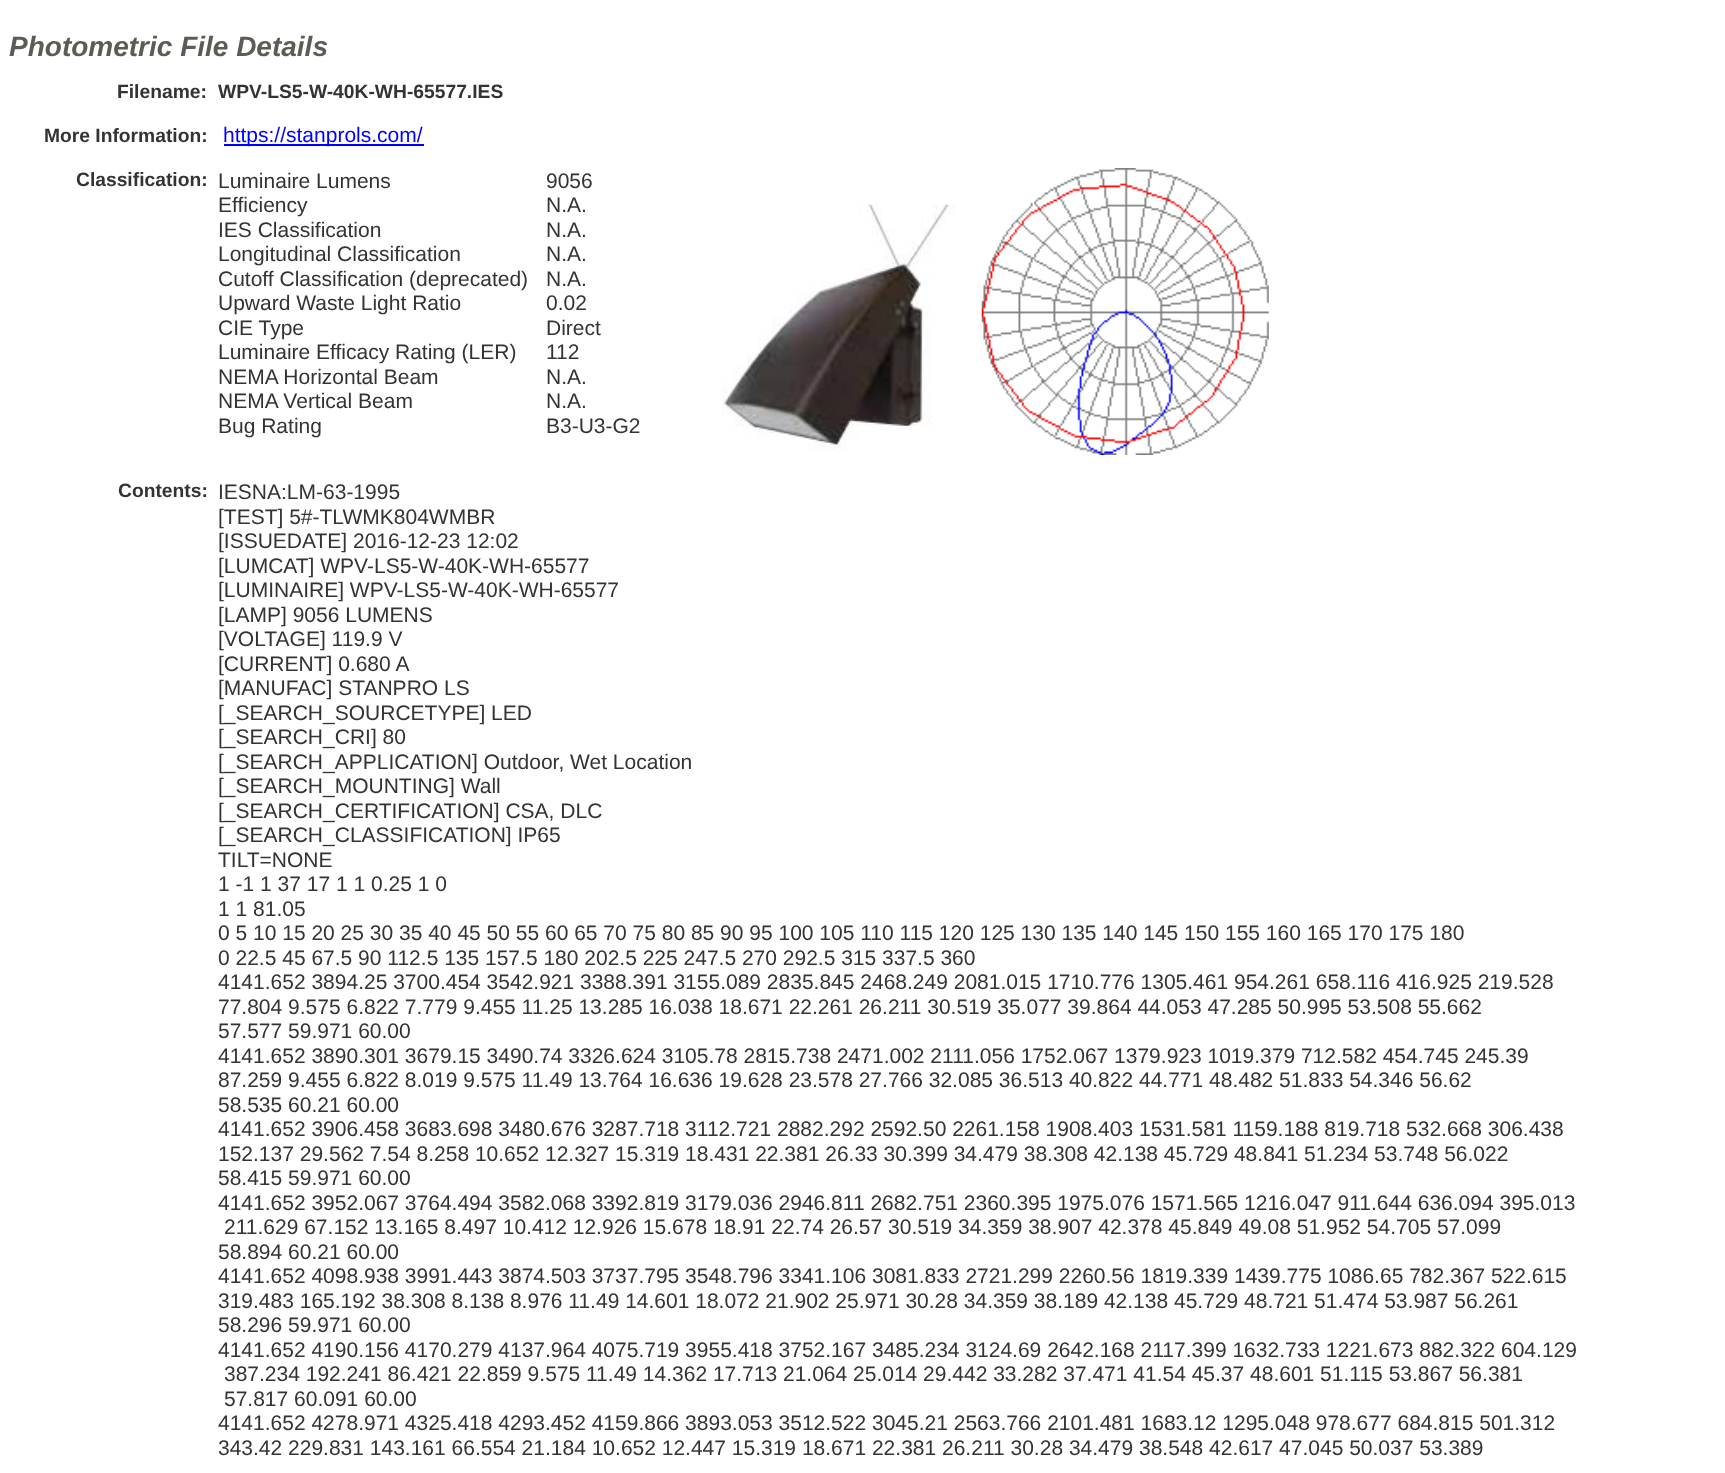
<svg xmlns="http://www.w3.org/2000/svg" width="1725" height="1473">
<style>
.a{font:italic bold 28px Liberation Sans;fill:#5e5b54}
.b{font:bold 19.25px Liberation Sans;fill:#333}
.c{font:21px Liberation Sans;fill:#00f}
.d{font:21px Liberation Sans;fill:#333}
</style>
<rect width="100%" height="100%" fill="#fff"/>
<path fill="#00f" d="M224 144h200v2H224z"/>
<image href="1.png" x="722" y="204" width="234" height="248"/>
<image href="2.png" x="981" y="168" width="288" height="287"/>
<text class="a" x="9" y="56">Photometric File Details</text>
<text class="b" x="117" y="98">Filename:</text>
<text class="b" x="218" y="98">WPV-LS5-W-40K-WH-65577.IES</text>
<text class="b" x="44" y="142">More Information:</text>
<text class="c" x="223" y="142">https://stanprols.com/</text>
<text class="b" x="76" y="186">Classification:</text>
<text class="d" x="218" y="188">Luminaire Lumens</text>
<text class="d" x="546" y="188">9056</text>
<text class="d" x="218" y="212">Efficiency</text>
<text class="d" x="546" y="212">N.A.</text>
<text class="d" x="218" y="237">IES Classification</text>
<text class="d" x="546" y="237">N.A.</text>
<text class="d" x="218" y="261">Longitudinal Classification</text>
<text class="d" x="546" y="261">N.A.</text>
<text class="d" x="218" y="286">Cutoff Classification (deprecated)</text>
<text class="d" x="546" y="286">N.A.</text>
<text class="d" x="218" y="310">Upward Waste Light Ratio</text>
<text class="d" x="546" y="310">0.02</text>
<text class="d" x="218" y="335">CIE Type</text>
<text class="d" x="546" y="335">Direct</text>
<text class="d" x="218" y="359">Luminaire Efficacy Rating (LER)</text>
<text class="d" x="546" y="359">112</text>
<text class="d" x="218" y="384">NEMA Horizontal Beam</text>
<text class="d" x="546" y="384">N.A.</text>
<text class="d" x="218" y="408">NEMA Vertical Beam</text>
<text class="d" x="546" y="408">N.A.</text>
<text class="d" x="218" y="433">Bug Rating</text>
<text class="d" x="546" y="433">B3-U3-G2</text>
<text class="b" x="118" y="497">Contents:</text>
<text class="d" x="218" y="499">IESNA:LM-63-1995</text>
<text class="d" x="218" y="524">[TEST] 5#-TLWMK804WMBR</text>
<text class="d" x="218" y="548">[ISSUEDATE] 2016-12-23 12:02</text>
<text class="d" x="218" y="573">[LUMCAT] WPV-LS5-W-40K-WH-65577</text>
<text class="d" x="218" y="597">[LUMINAIRE] WPV-LS5-W-40K-WH-65577</text>
<text class="d" x="218" y="622">[LAMP] 9056 LUMENS</text>
<text class="d" x="218" y="646">[VOLTAGE] 119.9 V</text>
<text class="d" x="218" y="671">[CURRENT] 0.680 A</text>
<text class="d" x="218" y="695">[MANUFAC] STANPRO LS</text>
<text class="d" x="218" y="720">[_SEARCH_SOURCETYPE] LED</text>
<text class="d" x="218" y="744">[_SEARCH_CRI] 80</text>
<text class="d" x="218" y="769">[_SEARCH_APPLICATION] Outdoor, Wet Location</text>
<text class="d" x="218" y="793">[_SEARCH_MOUNTING] Wall</text>
<text class="d" x="218" y="818">[_SEARCH_CERTIFICATION] CSA, DLC</text>
<text class="d" x="218" y="842">[_SEARCH_CLASSIFICATION] IP65</text>
<text class="d" x="218" y="867">TILT=NONE</text>
<text class="d" x="218" y="891">1 -1 1 37 17 1 1 0.25 1 0</text>
<text class="d" x="218" y="916">1 1 81.05</text>
<text class="d" x="218" y="940">0 5 10 15 20 25 30 35 40 45 50 55 60 65 70 75 80 85 90 95 100 105 110 115 120 125 130 135 140 145 150 155 160 165 170 175 180</text>
<text class="d" x="218" y="965">0 22.5 45 67.5 90 112.5 135 157.5 180 202.5 225 247.5 270 292.5 315 337.5 360</text>
<text class="d" x="218" y="989">4141.652 3894.25 3700.454 3542.921 3388.391 3155.089 2835.845 2468.249 2081.015 1710.776 1305.461 954.261 658.116 416.925 219.528</text>
<text class="d" x="218" y="1014">77.804 9.575 6.822 7.779 9.455 11.25 13.285 16.038 18.671 22.261 26.211 30.519 35.077 39.864 44.053 47.285 50.995 53.508 55.662</text>
<text class="d" x="218" y="1038">57.577 59.971 60.00</text>
<text class="d" x="218" y="1063">4141.652 3890.301 3679.15 3490.74 3326.624 3105.78 2815.738 2471.002 2111.056 1752.067 1379.923 1019.379 712.582 454.745 245.39</text>
<text class="d" x="218" y="1087">87.259 9.455 6.822 8.019 9.575 11.49 13.764 16.636 19.628 23.578 27.766 32.085 36.513 40.822 44.771 48.482 51.833 54.346 56.62</text>
<text class="d" x="218" y="1112">58.535 60.21 60.00</text>
<text class="d" x="218" y="1136">4141.652 3906.458 3683.698 3480.676 3287.718 3112.721 2882.292 2592.50 2261.158 1908.403 1531.581 1159.188 819.718 532.668 306.438</text>
<text class="d" x="218" y="1161">152.137 29.562 7.54 8.258 10.652 12.327 15.319 18.431 22.381 26.33 30.399 34.479 38.308 42.138 45.729 48.841 51.234 53.748 56.022</text>
<text class="d" x="218" y="1185">58.415 59.971 60.00</text>
<text class="d" x="218" y="1210">4141.652 3952.067 3764.494 3582.068 3392.819 3179.036 2946.811 2682.751 2360.395 1975.076 1571.565 1216.047 911.644 636.094 395.013</text>
<text class="d" x="224" y="1234">211.629 67.152 13.165 8.497 10.412 12.926 15.678 18.91 22.74 26.57 30.519 34.359 38.907 42.378 45.849 49.08 51.952 54.705 57.099</text>
<text class="d" x="218" y="1259">58.894 60.21 60.00</text>
<text class="d" x="218" y="1283">4141.652 4098.938 3991.443 3874.503 3737.795 3548.796 3341.106 3081.833 2721.299 2260.56 1819.339 1439.775 1086.65 782.367 522.615</text>
<text class="d" x="218" y="1308">319.483 165.192 38.308 8.138 8.976 11.49 14.601 18.072 21.902 25.971 30.28 34.359 38.189 42.138 45.729 48.721 51.474 53.987 56.261</text>
<text class="d" x="218" y="1332">58.296 59.971 60.00</text>
<text class="d" x="218" y="1357">4141.652 4190.156 4170.279 4137.964 4075.719 3955.418 3752.167 3485.234 3124.69 2642.168 2117.399 1632.733 1221.673 882.322 604.129</text>
<text class="d" x="224" y="1381">387.234 192.241 86.421 22.859 9.575 11.49 14.362 17.713 21.064 25.014 29.442 33.282 37.471 41.54 45.37 48.601 51.115 53.867 56.381</text>
<text class="d" x="224" y="1406">57.817 60.091 60.00</text>
<text class="d" x="218" y="1430">4141.652 4278.971 4325.418 4293.452 4159.866 3893.053 3512.522 3045.21 2563.766 2101.481 1683.12 1295.048 978.677 684.815 501.312</text>
<text class="d" x="218" y="1455">343.42 229.831 143.161 66.554 21.184 10.652 12.447 15.319 18.671 22.381 26.211 30.28 34.479 38.548 42.617 47.045 50.037 53.389</text>
</svg>
